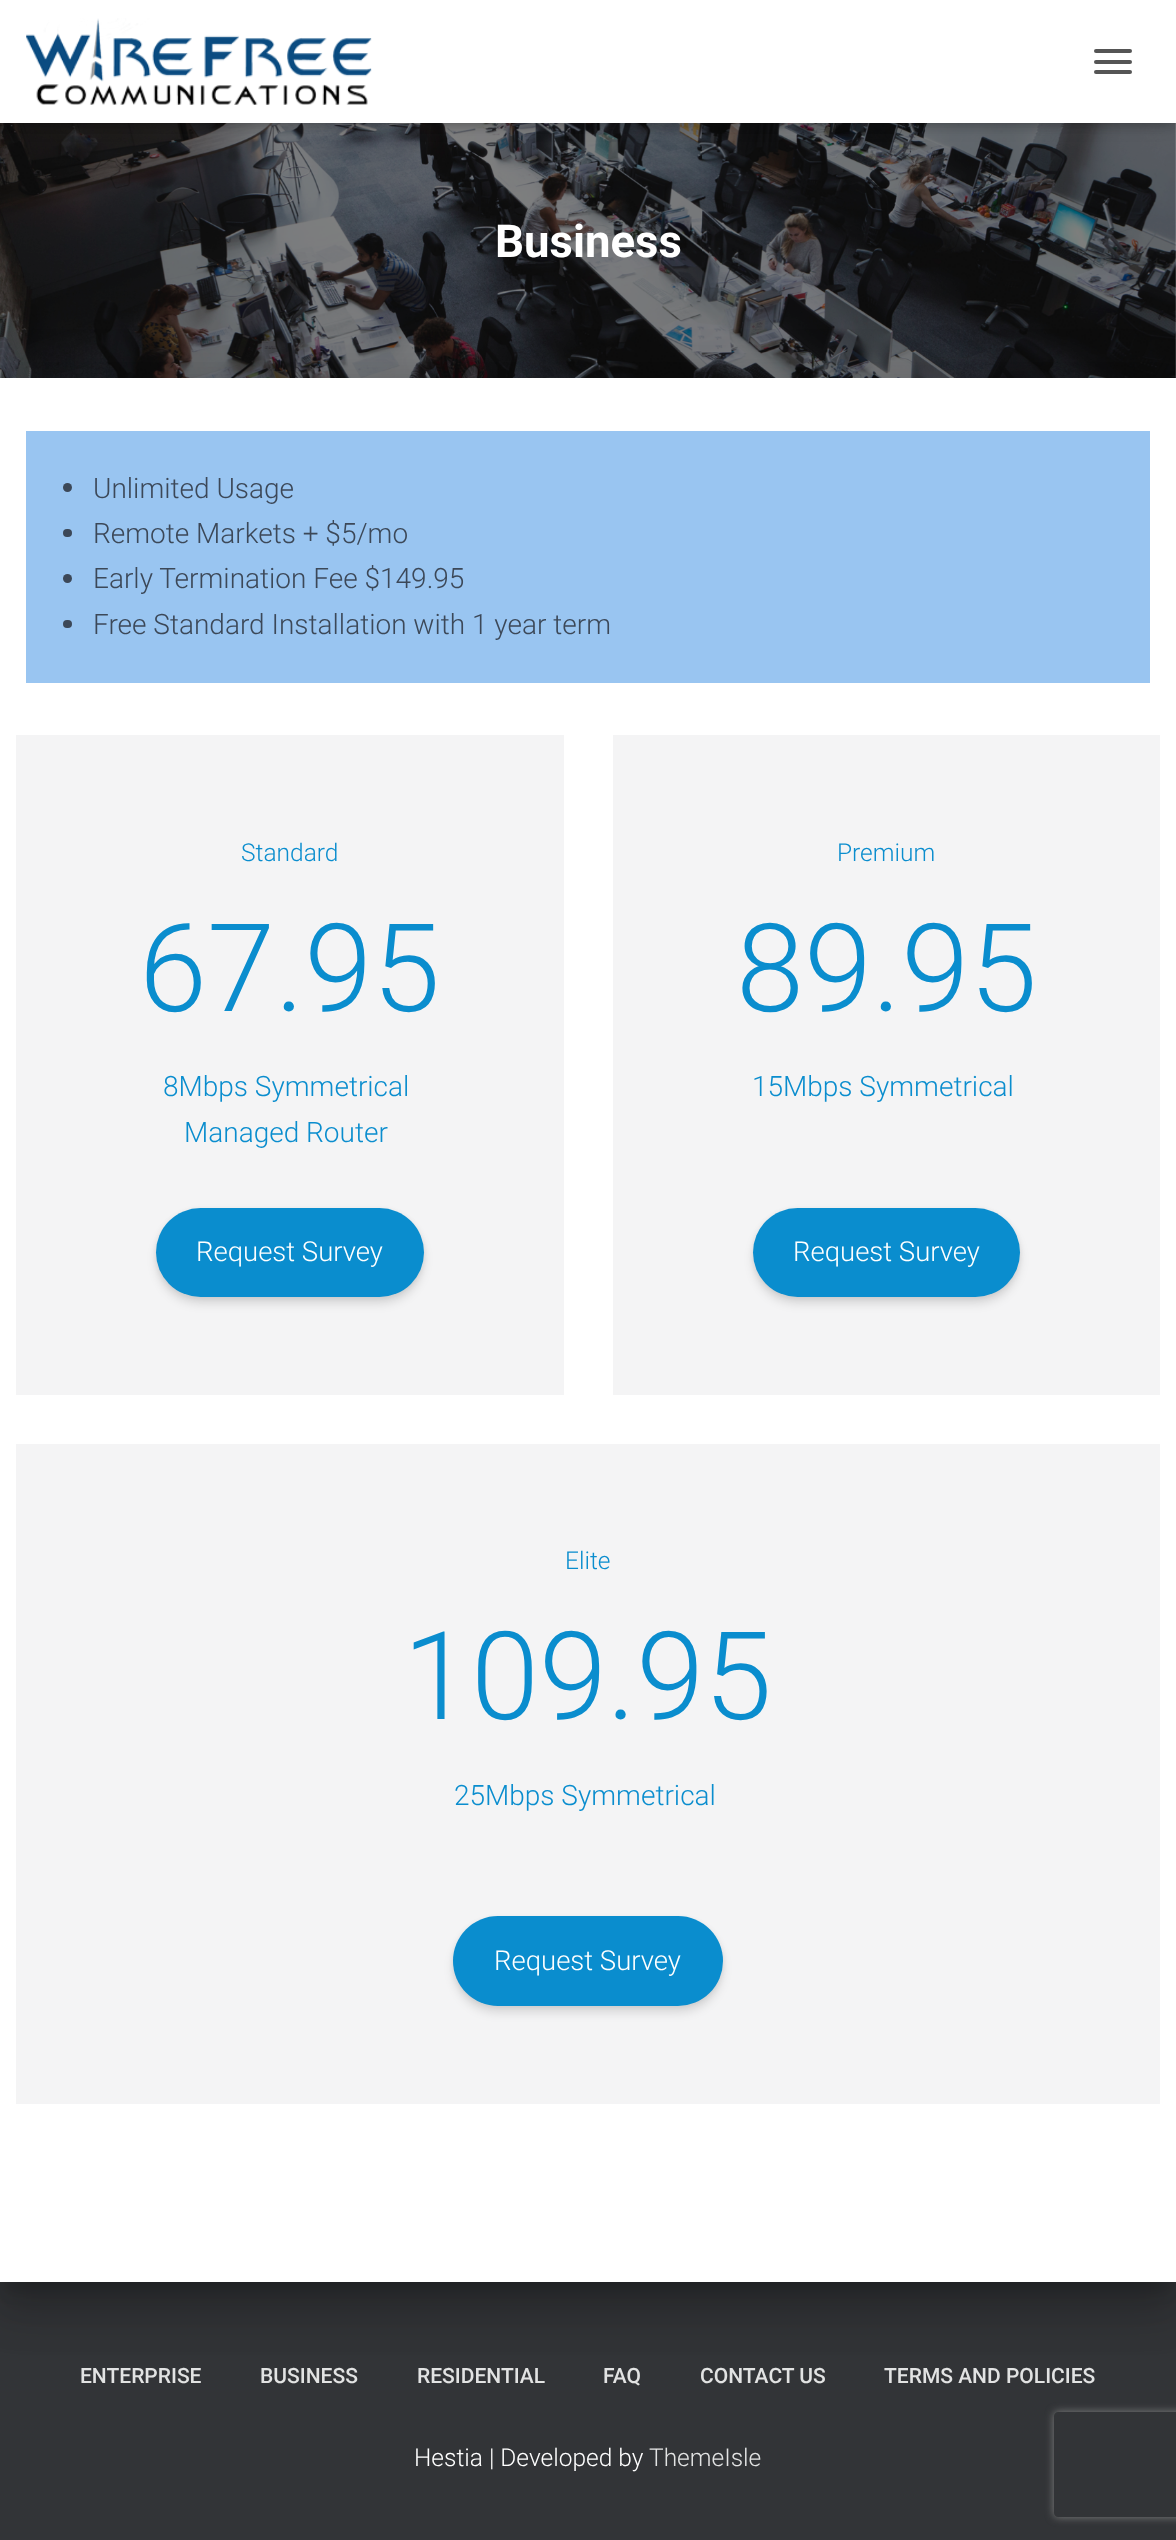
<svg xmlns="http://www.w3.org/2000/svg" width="1176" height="2540">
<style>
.a{font:bold 45.5px Roboto;fill:#fff}
.b{font:300 28px Roboto;fill:#3c4858}
.c{font:300 24.5px Roboto;fill:#0a8dce}
.d{font:300 122.5px Roboto;fill:#0a8dce}
.e{font:300 28px Roboto;fill:#0a8dce}
.f{font:300 27.5px Roboto;fill:#fff}
.g{font:500 21px Roboto;fill:#e2e3e3}
.h{font:300 24.5px Roboto;fill:#fff}
.i{font:300 24.5px Roboto;fill:#e2e3e3}
</style>
<defs>
<clipPath id="clip1"><path d="M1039 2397h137v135h-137zm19 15h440c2 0 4 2 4 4v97c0 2-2 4-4 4h-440c-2 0-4-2-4-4v-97c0-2 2-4 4-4z" clip-rule="evenodd"/></clipPath>
</defs>
<rect width="100%" height="100%" fill="#fff"/>
<image href="2.png" x="0" y="123" width="1176" height="255"/>
<path fill="#0000001a" filter="blur(4.5px)" d="M4 11h1169v115H4z"/>
<path fill="#0000001f" filter="blur(9px)" d="M0 2h1176v122H0z"/>
<path fill="#0000006b" filter="blur(9px)" d="M11 12h1155v102H11z"/>
<path fill="#fff" d="M0 0h1176v123H0z"/>
<image href="1.png" x="26" y="18" width="346" height="87"/>
<rect fill="#555" x="1094" y="49" width="38" height="4" rx="2"/>
<rect fill="#555" x="1094" y="60" width="38" height="4" rx="2"/>
<rect fill="#555" x="1094" y="70" width="38" height="4" rx="2"/>
<path fill="#323437" d="M0 2282h1176v258H0z"/>
<path fill="#00000033" filter="blur(9px)" d="M9 401h1158v1886H9z"/>
<path fill="#0000001f" filter="blur(26px)" d="M-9 380h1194v1921H-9z"/>
<path fill="#00000024" filter="blur(21px)" d="M-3 403h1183v1911H-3z"/>
<path fill="#fff" d="M0 378h1176v1904H0z"/>
<path fill="#99c5f1" d="M26 431h1124v252H26z"/>
<circle fill="#3c4858" cx="67.5" cy="487.5" r="4.5"/>
<rect fill="#3c4858" x="63" y="529" width="9" height="8" rx="4"/>
<circle fill="#3c4858" cx="67.5" cy="578.5" r="4.5"/>
<rect fill="#3c4858" x="63" y="620" width="9" height="8" rx="4"/>
<path fill="#f4f4f5" d="M16 735h548v660H16z"/>
<rect fill="#00000012" filter="blur(2.5px)" x="156" y="1209" width="268" height="90" rx="45"/>
<rect fill="#0000001c" filter="blur(5px)" x="156" y="1215" width="268" height="89" rx="44.5"/>
<rect fill="#0a8dce" x="156" y="1208" width="268" height="89" rx="44.5"/>
<path fill="#f4f4f5" d="M613 735h547v660H613z"/>
<rect fill="#00000012" filter="blur(2.5px)" x="753" y="1209" width="267" height="90" rx="45"/>
<rect fill="#0000001c" filter="blur(5px)" x="753" y="1215" width="267" height="89" rx="44.5"/>
<rect fill="#0a8dce" x="753" y="1208" width="267" height="89" rx="44.5"/>
<path fill="#f4f4f5" d="M16 1444h1144v660H16z"/>
<rect fill="#00000012" filter="blur(2.5px)" x="453" y="1918" width="270" height="89" rx="44.5"/>
<rect fill="#0000001c" filter="blur(5px)" x="453" y="1923" width="270" height="90" rx="45"/>
<rect fill="#0a8dce" x="453" y="1916" width="270" height="90" rx="45"/>
<g clip-path="url(#clip1)">
<rect fill="#808080" filter="blur(4.5px)" x="1054" y="2412" width="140" height="105" rx="4"/>
</g>
<text class="a" x="495" y="257">Business</text>
<text class="b" x="93" y="498">Unlimited Usage</text>
<text class="b" x="93" y="543">Remote Markets + $5/mo</text>
<text class="b" x="93" y="588">Early Termination Fee $149.95</text>
<text class="b" x="93" y="634">Free Standard Installation with 1 year term</text>
<text class="c" x="241" y="861">Standard</text>
<text class="d" x="139" y="1011">67.95</text>
<text class="e" x="163" y="1096">8Mbps Symmetrical</text>
<text class="e" x="184" y="1142">Managed Router</text>
<text class="f" x="196" y="1261">Request Survey</text>
<text class="c" x="837" y="861">Premium</text>
<text class="d" x="736" y="1011">89.95</text>
<text class="e" x="752" y="1096">15Mbps Symmetrical</text>
<text class="f" x="793" y="1261">Request Survey</text>
<text class="c" x="565" y="1569">Elite</text>
<text class="d" x="403" y="1719">109.95</text>
<text class="e" x="454" y="1805">25Mbps Symmetrical</text>
<text class="f" x="494" y="1970">Request Survey</text>
<text class="g" x="80" y="2383">ENTERPRISE</text>
<text class="g" x="260" y="2383">BUSINESS</text>
<text class="g" x="417" y="2383">RESIDENTIAL</text>
<text class="g" x="603" y="2383">FAQ</text>
<text class="g" x="700" y="2383">CONTACT US</text>
<text class="g" x="884" y="2383">TERMS AND POLICIES</text>
<text class="h" x="414" y="2466">Hestia | Developed by</text>
<text class="i" x="649" y="2466">ThemeIsle</text>
</svg>
